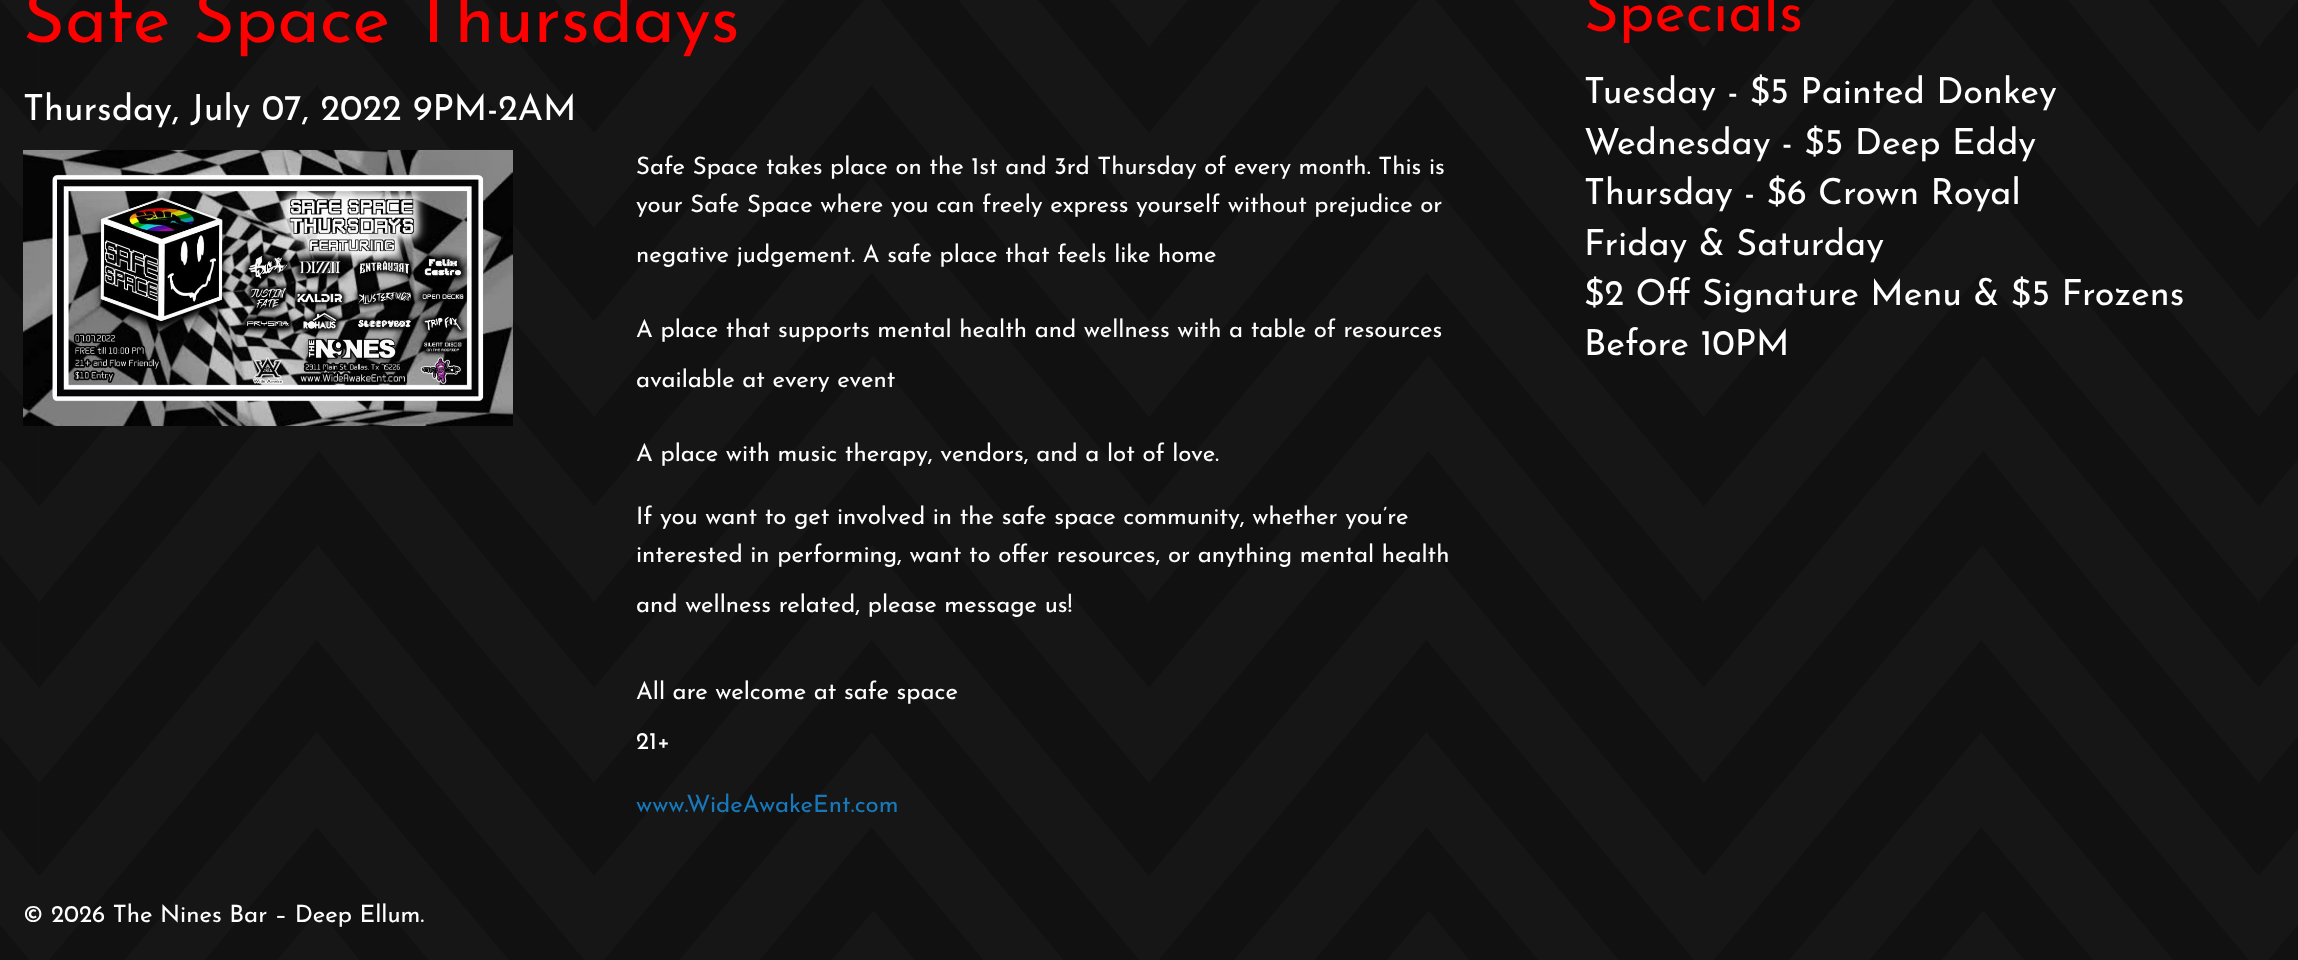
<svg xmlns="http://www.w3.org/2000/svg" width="2298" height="960">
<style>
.a{font:100 72px Josefin Sans;fill:#f00}
.b{font:100 36px Josefin Sans;fill:#fff}
.c{font:100 24px Josefin Sans;fill:#fff}
.d{font:100 24px Josefin Sans;fill:#1779ba}
.e{font:100 60px Josefin Sans;fill:#f00}
</style>
<rect width="100%" height="100%" fill="#fff"/>
<image href="1.png" x="0" y="0" width="2298" height="960"/>
<image href="2.png" x="23" y="149" width="490" height="277"/>
<text class="a" x="23" y="42">Safe Space Thursdays</text>
<text class="b" x="23" y="120">Thursday, July 07, 2022 9PM-2AM</text>
<text class="c" x="636" y="174">Safe Space takes place on the 1st and 3rd Thursday of every month. This is</text>
<text class="c" x="636" y="212">your Safe Space where you can freely express yourself without prejudice or</text>
<text class="c" x="636" y="262">negative judgement. A safe place that feels like home</text>
<text class="c" x="636" y="337">A place that supports mental health and wellness with a table of resources</text>
<text class="c" x="636" y="387">available at every event</text>
<text class="c" x="636" y="461">A place with music therapy, vendors, and a lot of love.</text>
<text class="c" x="636" y="524">If you want to get involved in the safe space community, whether you’re</text>
<text class="c" x="636" y="562">interested in performing, want to offer resources, or anything mental health</text>
<text class="c" x="636" y="612">and wellness related, please message us!</text>
<text class="c" x="636" y="699">All are welcome at safe space</text>
<text class="c" x="636" y="749">21+</text>
<text class="d" x="636" y="812">www.WideAwakeEnt.com</text>
<text class="e" x="1584" y="31">Specials</text>
<text class="b" x="1584" y="103">Tuesday - $5 Painted Donkey</text>
<text class="b" x="1584" y="154">Wednesday - $5 Deep Eddy</text>
<text class="b" x="1584" y="204">Thursday - $6 Crown Royal</text>
<text class="b" x="1584" y="255">Friday &amp; Saturday</text>
<text class="b" x="1584" y="305">$2 Off Signature Menu &amp; $5 Frozens</text>
<text class="b" x="1584" y="355">Before 10PM</text>
<text class="c" x="23" y="922">© 2026 The Nines Bar – Deep Ellum.</text>
</svg>
